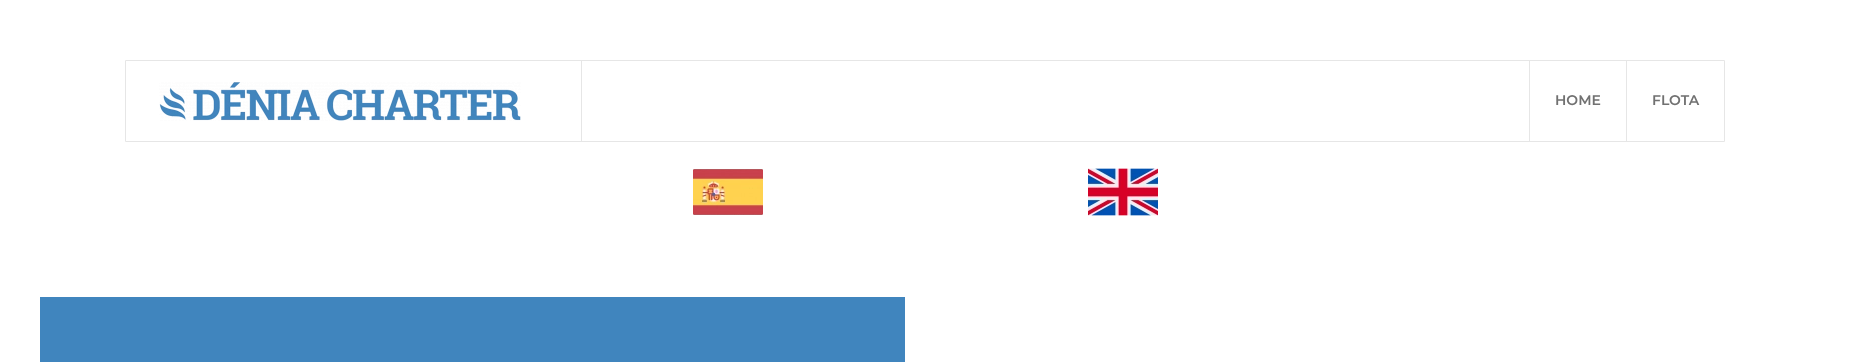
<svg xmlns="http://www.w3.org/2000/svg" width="1850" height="362">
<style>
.a{font:100 14px Montserrat;fill:#717171}
</style>
<rect width="100%" height="100%" fill="#fff"/>
<path fill="none" stroke="#e6e6e6" d="M125.5 60.5h1599v81H125.5z"/>
<path fill="#e6e6e6" d="M581 61h1v80H581z"/>
<image href="1.png" x="159" y="82" width="362" height="39"/>
<path fill="#e6e6e6" d="M1529 61h1v80H1529z"/>
<path fill="#e6e6e6" d="M1626 61h1v80H1626z"/>
<image href="2.png" x="693" y="169" width="70" height="46"/>
<image href="3.png" x="1088" y="168" width="70" height="48"/>
<path fill="#4085be" d="M40 297h865v65H40z"/>
<text class="a" x="1555" y="105">HOME</text>
<text class="a" x="1652" y="105">FLOTA</text>
</svg>
